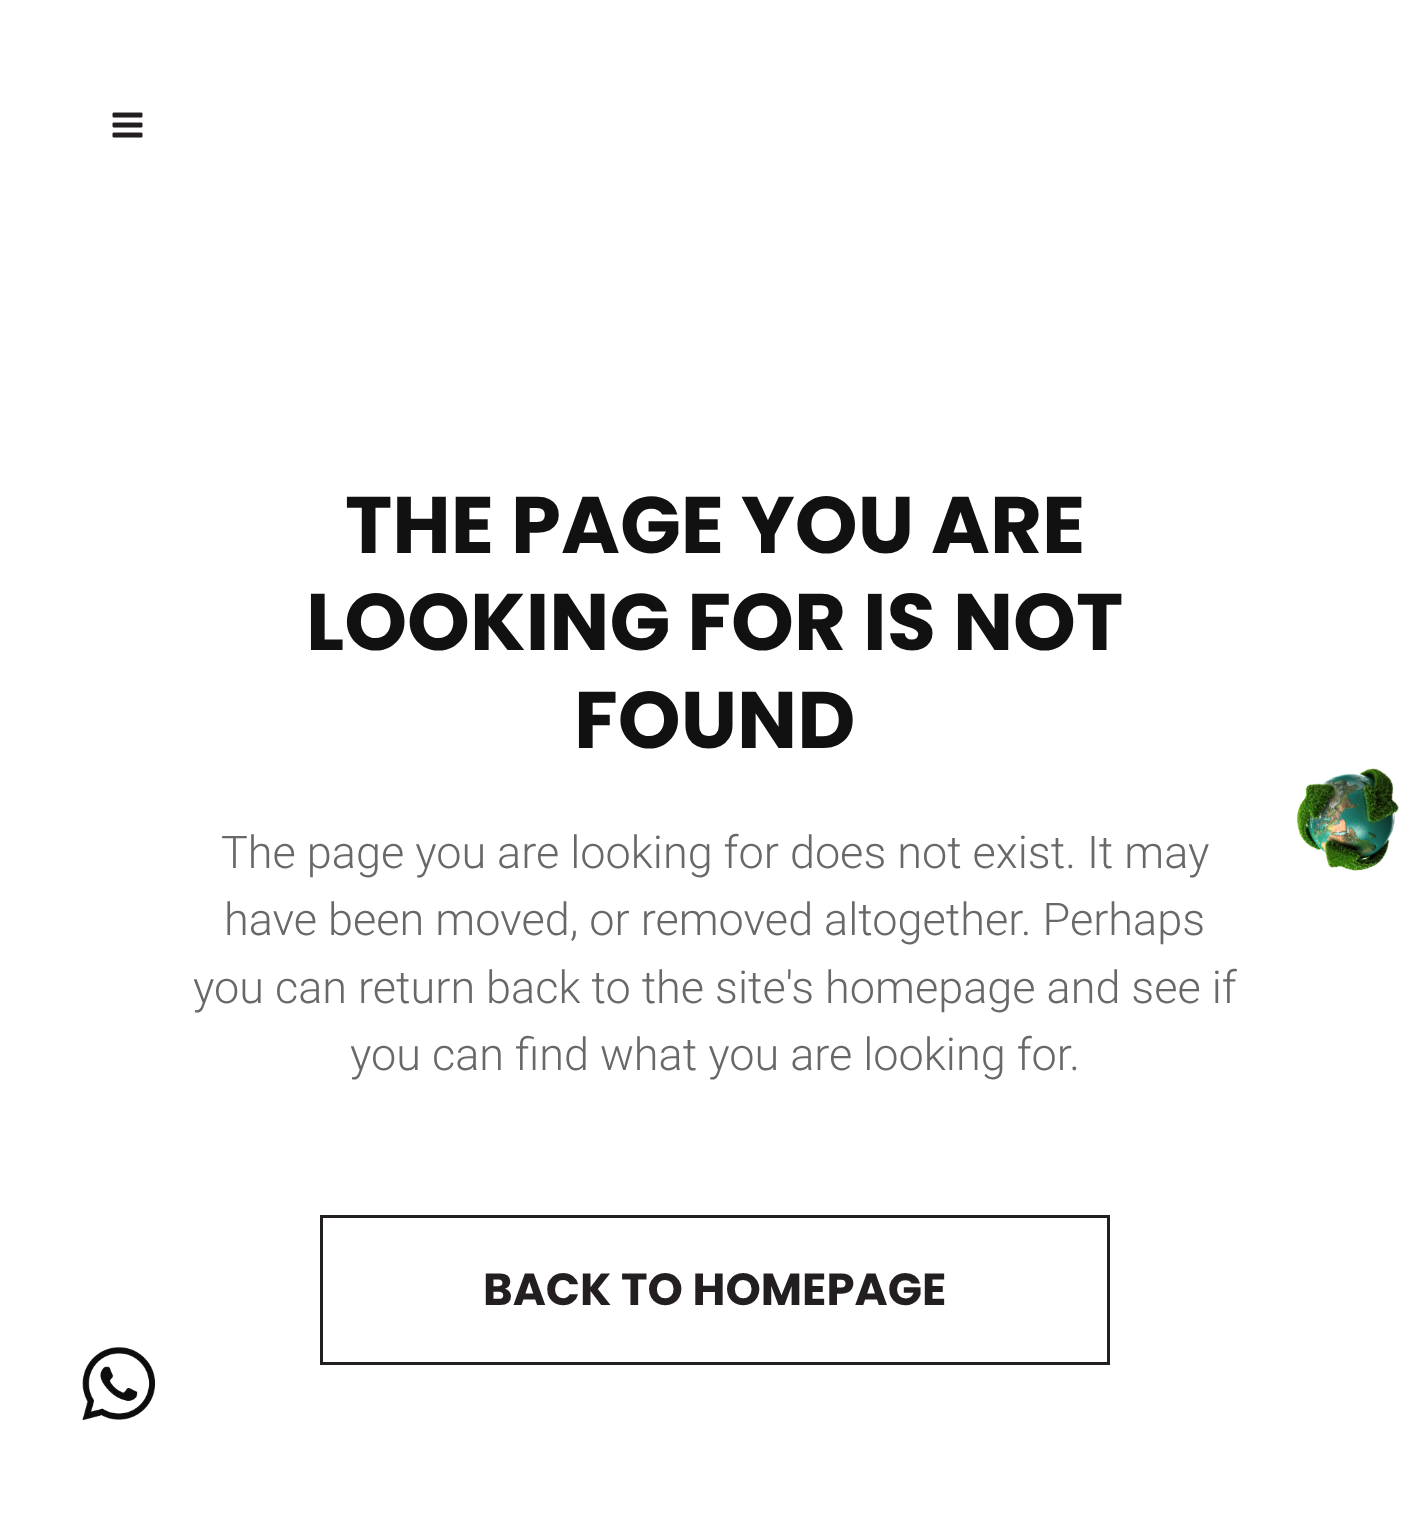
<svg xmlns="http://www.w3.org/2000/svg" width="1428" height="1518">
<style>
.a{font:bold 80px Poppins;fill:#111}
.b{font:300 45px Roboto;fill:#686868}
.c{font:bold 45px Poppins;fill:#231f20}
</style>
<rect width="100%" height="100%" fill="#fff"/>
<image href="1.png" x="112" y="112" width="31" height="26"/>
<path fill="none" stroke="#231f20" stroke-width="3" d="M321.5 1216.5h787v147H321.5z"/>
<image href="2.png" x="1296" y="768" width="103" height="103"/>
<image href="3.png" x="82" y="1347" width="74" height="74"/>
<text class="a" x="345" y="553">THE PAGE YOU ARE</text>
<text class="a" x="306" y="650">LOOKING FOR IS NOT</text>
<text class="a" x="574" y="748">FOUND</text>
<text class="b" x="221" y="868">The page you are looking for does not exist. It may</text>
<text class="b" x="224" y="935">have been moved, or removed altogether. Perhaps</text>
<text class="b" x="193" y="1003">you can return back to the site's homepage and see if</text>
<text class="b" x="350" y="1070">you can find what you are looking for.</text>
<text class="c" x="483" y="1305">BACK TO HOMEPAGE</text>
</svg>
